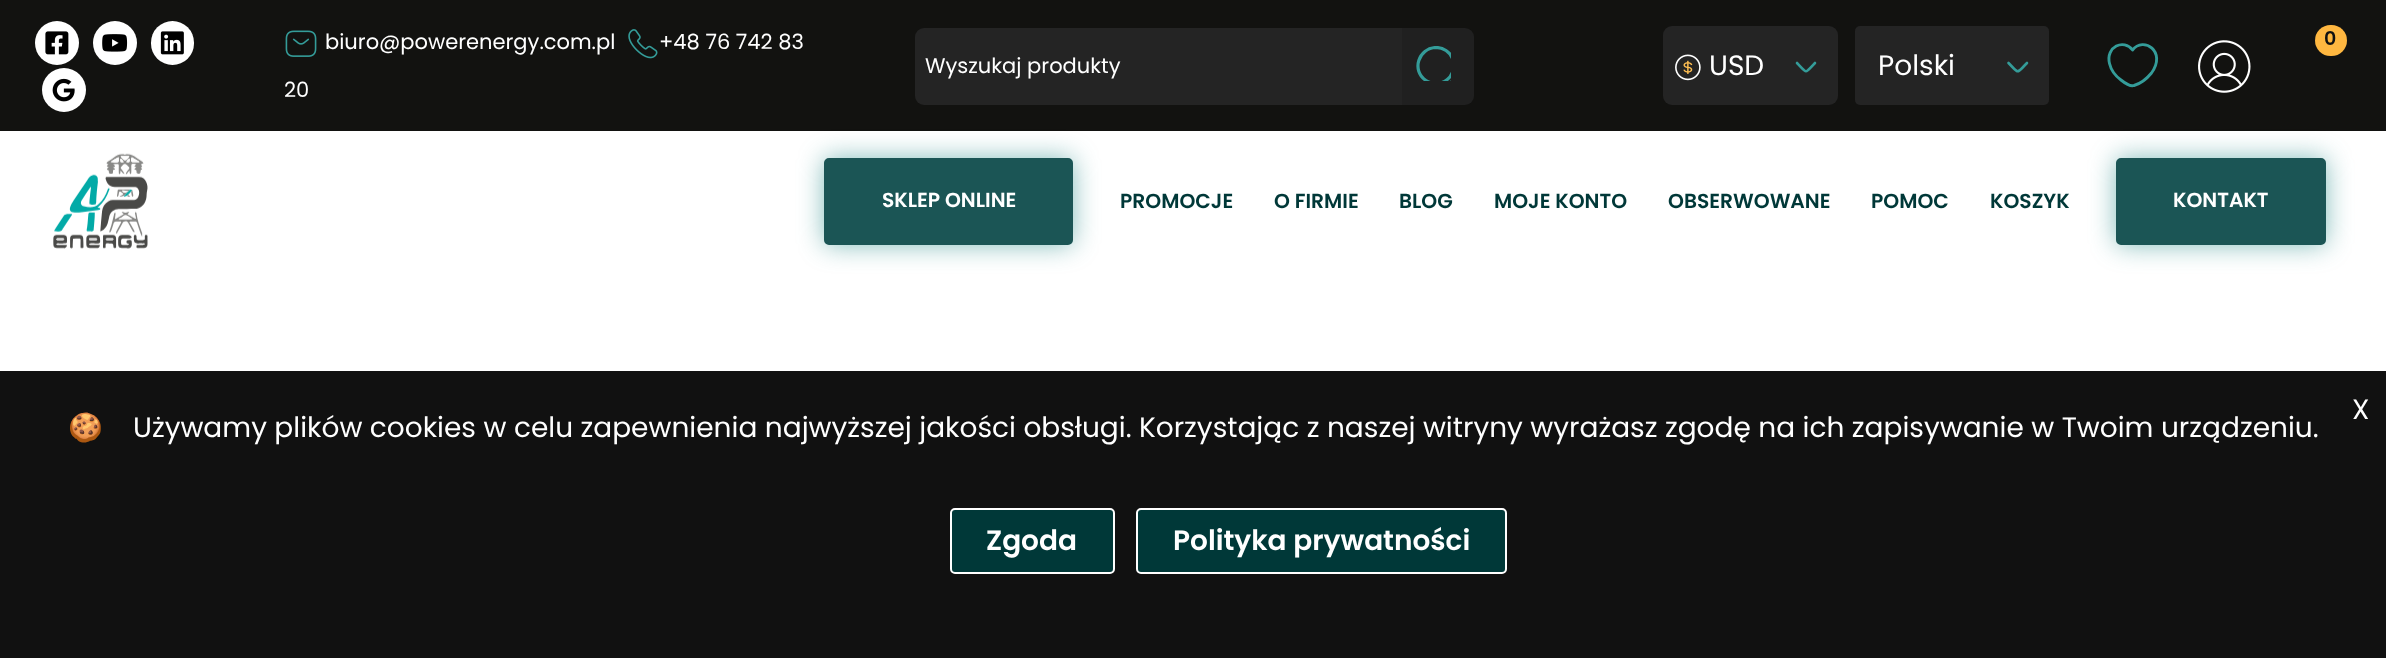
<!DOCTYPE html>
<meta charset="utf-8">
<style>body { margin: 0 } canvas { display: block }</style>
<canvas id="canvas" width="2386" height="658"></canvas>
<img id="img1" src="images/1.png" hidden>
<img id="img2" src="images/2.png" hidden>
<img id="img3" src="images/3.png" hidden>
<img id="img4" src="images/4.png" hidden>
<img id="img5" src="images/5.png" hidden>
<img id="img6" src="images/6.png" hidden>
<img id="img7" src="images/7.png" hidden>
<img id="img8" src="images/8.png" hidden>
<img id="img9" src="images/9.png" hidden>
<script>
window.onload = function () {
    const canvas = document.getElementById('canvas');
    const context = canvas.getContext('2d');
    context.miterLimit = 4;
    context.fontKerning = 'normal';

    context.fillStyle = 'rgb(255, 255, 255)';
    context.fillRect(0, 0, 2386, 658);
    context.fillStyle = 'rgb(18, 18, 16)';
    context.fillRect(0, 0, 2386, 131);
    context.fillStyle = 'rgb(255, 255, 255)';
    context.beginPath();
    context.arc(57, 43, 22, 0, 2 * Math.PI);
    context.fill();
    context.drawImage(document.getElementById('img1'), 45, 31, 24, 24);
    context.beginPath();
    context.arc(115, 43, 22, 0, 2 * Math.PI);
    context.fill();
    context.drawImage(document.getElementById('img2'), 102, 34, 26, 18);
    context.beginPath();
    context.roundRect(151, 21, 43, 44, 21.5);
    context.fill();
    context.drawImage(document.getElementById('img3'), 160, 31, 24, 24);
    context.beginPath();
    context.arc(64, 90, 22, 0, 2 * Math.PI);
    context.fill();
    context.drawImage(document.getElementById('img4'), 52, 78, 23, 24);
    context.drawImage(document.getElementById('img5'), 285, 30, 32, 27);
    context.drawImage(document.getElementById('img6'), 628, 29, 30, 30);
    context.fillStyle = 'rgb(32, 32, 32)';
    context.beginPath();
    context.roundRect(1400, 28, 74, 77, [0, 9, 9, 0]);
    context.fill();
    context.fillStyle = 'rgb(36, 36, 36)';
    context.beginPath();
    context.roundRect(915, 28, 487, 77, [9, 0, 0, 9]);
    context.fill();
    context.save();
    context.beginPath();
    context.rect(1416, 46, 35, 35);
    context.clip();
    context.beginPath();
    context.moveTo(1455.5, 85.5);
    context.lineTo(1452, 81.5);
    context.moveTo(1436, 83.5);
    context.bezierCurveTo(1453.5, 83.5, 1460.5, 60.5, 1446, 50.5);
    context.bezierCurveTo(1443, 48.5, 1439.5, 47.5, 1436, 47.5);
    context.bezierCurveTo(1418.5, 48, 1411, 70.5, 1426, 80.5);
    context.bezierCurveTo(1429, 82.5, 1432.5, 83.5, 1436, 83.5);
    context.closePath();
    context.strokeStyle = 'rgb(52, 156, 153)';
    context.lineWidth = 3.2;
    context.lineCap = 'round';
    context.lineJoin = 'round';
    context.stroke();
    context.restore();
    context.fillStyle = 'rgb(255, 183, 64)';
    context.beginPath();
    context.roundRect(2315, 25, 32, 31, 15.5);
    context.fill();
    context.fillStyle = 'rgb(36, 36, 36)';
    context.beginPath();
    context.roundRect(1663, 26, 175, 79, 9);
    context.fill();
    context.beginPath();
    context.moveTo(1815, 63);
    context.bezierCurveTo(1804.5, 74, 1807.5, 74, 1797, 63);
    context.strokeStyle = 'rgb(52, 156, 153)';
    context.lineWidth = 2.6;
    context.lineCap = 'round';
    context.lineJoin = 'round';
    context.stroke();
    context.drawImage(document.getElementById('img7'), 1675, 54, 26, 27);
    context.beginPath();
    context.roundRect(1855, 26, 194, 79, 5);
    context.fill();
    context.beginPath();
    context.moveTo(2027, 63);
    context.bezierCurveTo(2016, 74, 2019.5, 74, 2008.5, 63);
    context.stroke();
    context.beginPath();
    context.moveTo(2134, 85.5);
    context.bezierCurveTo(2130, 87, 2123.5, 82, 2121, 80);
    context.bezierCurveTo(2115.5, 76, 2111, 70, 2109.5, 63.5);
    context.bezierCurveTo(2105.5, 46.5, 2124, 38.5, 2132.5, 50);
    context.bezierCurveTo(2143.5, 36, 2167, 51.5, 2151.5, 73);
    context.bezierCurveTo(2147, 78.5, 2141, 83.5, 2134, 85.5);
    context.closePath();
    context.lineWidth = 2.9;
    context.stroke();
    context.drawImage(document.getElementById('img8'), 2198, 40, 53, 53);
    context.drawImage(document.getElementById('img9'), 53, 153, 95, 96);
    context.fillStyle = 'rgba(6, 122, 119, 0.5)';
    context.filter = 'blur(13px)';
    context.beginPath();
    context.roundRect(824, 158, 249, 87, 5);
    context.fill();
    context.filter = 'none';
    context.fillStyle = 'rgb(27, 85, 85)';
    context.beginPath();
    context.roundRect(825, 159, 247, 85, 4);
    context.fill();
    context.strokeStyle = 'rgb(27, 85, 85)';
    context.lineWidth = 2;
    context.lineJoin = 'miter';
    context.stroke();
    context.fillStyle = 'rgba(6, 122, 119, 0.5)';
    context.filter = 'blur(13px)';
    context.beginPath();
    context.roundRect(2116, 158, 210, 87, 5);
    context.fill();
    context.filter = 'none';
    context.fillStyle = 'rgb(27, 85, 85)';
    context.beginPath();
    context.roundRect(2117, 159, 208, 85, 4);
    context.fill();
    context.stroke();
    context.fillStyle = 'rgb(17, 17, 17)';
    context.fillRect(0, 371, 2386, 287);
    context.fillStyle = 'rgb(0, 56, 56)';
    context.beginPath();
    context.roundRect(951, 509, 163, 64, 4);
    context.fill();
    context.strokeStyle = 'rgb(255, 255, 255)';
    context.stroke();
    context.beginPath();
    context.roundRect(1137, 509, 369, 64, 4);
    context.fill();
    context.stroke();
    context.font = '21px Poppins';
    context.fillStyle = 'rgb(255, 255, 255)';
    context.fillText('biuro@powerenergy.com.pl', 325, 49);
    context.fillText('+48 76 742 83', 659, 49);
    context.fillText('20', 284, 97);
    context.fillText('Wyszukaj produkty', 925, 73);
    context.letterSpacing = '-1px';
    context.font = '600 19px Poppins';
    context.fillStyle = 'rgb(17, 17, 17)';
    context.fillText('0', 2324, 45);
    context.letterSpacing = '0px';
    context.font = '28px Poppins';
    context.fillStyle = 'rgb(255, 255, 255)';
    context.fillText('USD', 1709, 75);
    context.fillText('Polski', 1878, 75);
    context.font = '600 20.25px Poppins';
    context.fillText('SKLEP ONLINE', 882, 207);
    context.fillStyle = 'rgb(0, 56, 56)';
    context.fillText('PROMOCJE', 1120, 208);
    context.fillText('O FIRMIE', 1274, 208);
    context.fillText('BLOG', 1399, 208);
    context.fillText('MOJE KONTO', 1494, 208);
    context.fillText('OBSERWOWANE', 1668, 208);
    context.fillText('POMOC', 1871, 208);
    context.fillText('KOSZYK', 1990, 208);
    context.fillStyle = 'rgb(255, 255, 255)';
    context.fillText('KONTAKT', 2173, 207);
    context.font = '28px Poppins';
    context.fillText('X', 2352, 419);
    context.font = '28px Noto Color Emoji';
    context.fillText('🍪', 68, 437);
    context.font = '28px Poppins';
    context.fillText('Używamy plików cookies w celu zapewnienia najwyższej jakości obsługi. Korzystając z naszej witryny wyrażasz zgodę na ich zapisywanie w Twoim urządzeniu.', 133, 437);
    context.font = '600 28px Poppins';
    context.fillText('Zgoda', 986, 550);
    context.fillText('Polityka prywatności', 1173, 550);
};
</script>
